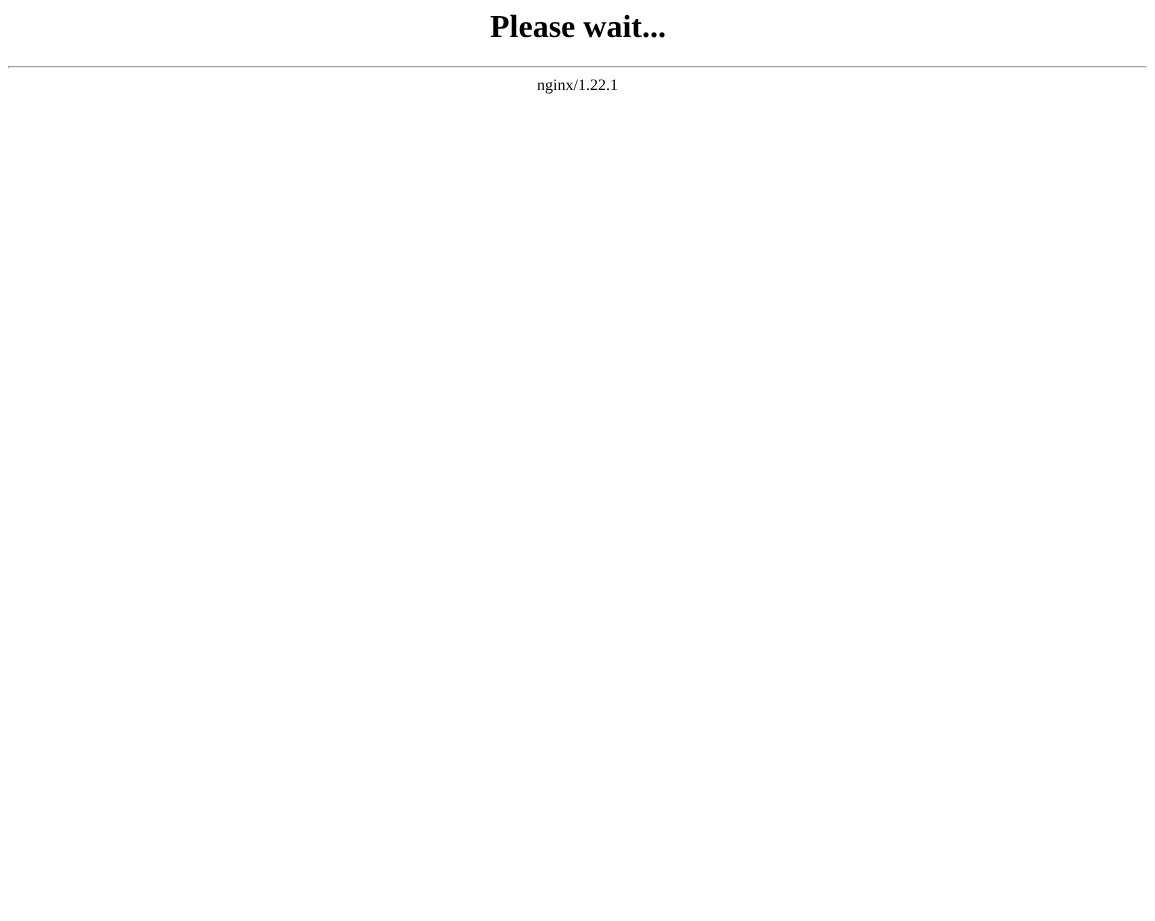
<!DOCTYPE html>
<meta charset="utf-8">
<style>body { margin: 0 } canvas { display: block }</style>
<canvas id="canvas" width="1155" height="921"></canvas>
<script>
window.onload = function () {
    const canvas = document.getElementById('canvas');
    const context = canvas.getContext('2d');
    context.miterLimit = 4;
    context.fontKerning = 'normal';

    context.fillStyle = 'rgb(255, 255, 255)';
    context.fillRect(0, 0, 1155, 921);
    context.fillStyle = 'rgb(159, 159, 159)';
    context.fillRect(8, 66, 1139, 1);
    context.fillStyle = 'rgb(238, 238, 238)';
    context.fillRect(1146, 66, 1, 2);
    context.fillRect(8, 67, 1139, 1);
    context.fillStyle = 'rgb(159, 159, 159)';
    context.fillRect(8, 66, 1, 2);
    context.font = 'bold 32px Liberation Serif';
    context.fillStyle = 'rgb(0, 0, 0)';
    context.fillText('Please wait...', 490, 37);
    context.font = '16px Liberation Serif';
    context.fillText('nginx/1.22.1', 537, 90);
};
</script>
